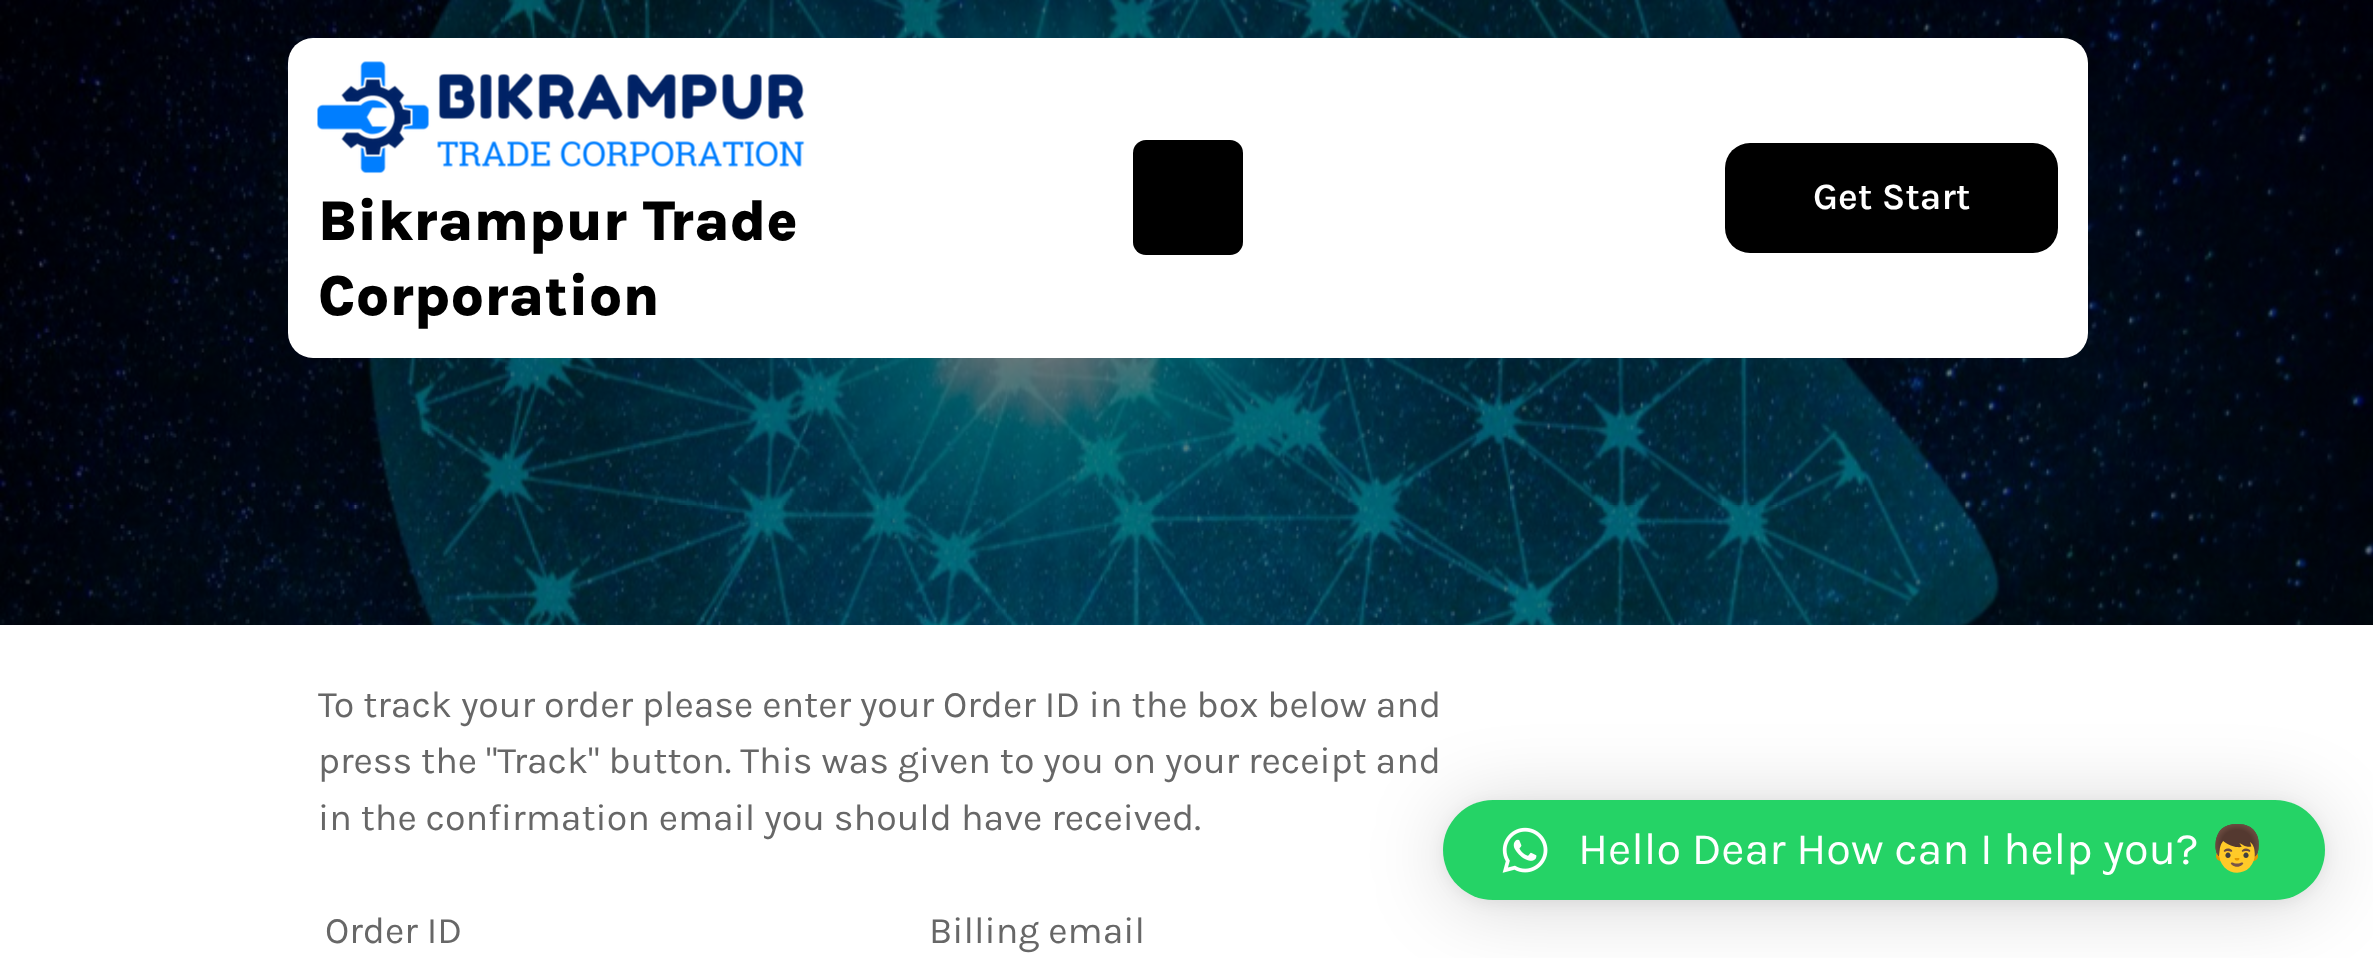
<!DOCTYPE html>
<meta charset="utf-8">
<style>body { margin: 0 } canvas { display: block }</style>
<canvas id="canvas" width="2373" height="958"></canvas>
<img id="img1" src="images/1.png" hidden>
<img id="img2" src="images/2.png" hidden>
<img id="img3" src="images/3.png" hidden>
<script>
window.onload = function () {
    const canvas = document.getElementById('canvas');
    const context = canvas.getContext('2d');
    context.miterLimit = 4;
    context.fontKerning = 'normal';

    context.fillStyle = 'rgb(255, 255, 255)';
    context.fillRect(0, 0, 2373, 958);
    context.fillStyle = 'rgb(0, 0, 0)';
    context.fillRect(0, 0, 2373, 625);
    context.drawImage(document.getElementById('img1'), 0, 0, 2373, 625);
    context.fillStyle = 'rgb(255, 255, 255)';
    context.beginPath();
    context.roundRect(288, 38, 1800, 320, 25);
    context.fill();
    context.drawImage(document.getElementById('img2'), 317, 61, 488, 113);
    context.fillStyle = 'rgb(0, 0, 0)';
    context.beginPath();
    context.roundRect(1133, 140, 110, 115, 13);
    context.fill();
    context.beginPath();
    context.roundRect(1725, 143, 333, 110, 25);
    context.fill();
    context.fillStyle = 'rgba(0, 0, 0, 0.16)';
    context.filter = 'blur(40px)';
    context.beginPath();
    context.roundRect(1443, 805, 882, 100, 50);
    context.fill();
    context.filter = 'none';
    context.fillStyle = 'rgba(0, 0, 0, 0.06)';
    context.filter = 'blur(7.5px)';
    context.beginPath();
    context.roundRect(1443, 803, 882, 100, 50);
    context.fill();
    context.filter = 'none';
    context.fillStyle = 'rgb(37, 211, 102)';
    context.beginPath();
    context.roundRect(1443, 800, 882, 100, 50);
    context.fill();
    context.drawImage(document.getElementById('img3'), 1502, 827, 46, 46);
    context.font = '800 57.5px Karla';
    context.fillStyle = 'rgb(0, 0, 0)';
    context.fillText('Bikrampur Trade', 318, 240);
    context.fillText('Corporation', 318, 315);
    context.font = '600 37.5px Karla';
    context.fillStyle = 'rgb(255, 255, 255)';
    context.fillText('Get Start', 1813, 209);
    context.font = '37.5px Karla';
    context.fillStyle = 'rgb(103, 103, 103)';
    context.fillText('To track your order please enter your Order ID in the box below and', 318, 717);
    context.fillText('press the "Track" button. This was given to you on your receipt and', 318, 773);
    context.fillText('in the confirmation email you should have received.', 318, 830);
    context.fillText('Order ID', 325, 943);
    context.fillText('Billing email', 929, 943);
    context.font = '45px Karla';
    context.fillStyle = 'rgb(255, 255, 255)';
    context.fillText('Hello Dear How can I help you?', 1578, 864);
    context.font = '45px Noto Color Emoji';
    context.fillText('👦', 2209, 864);
};
</script>
